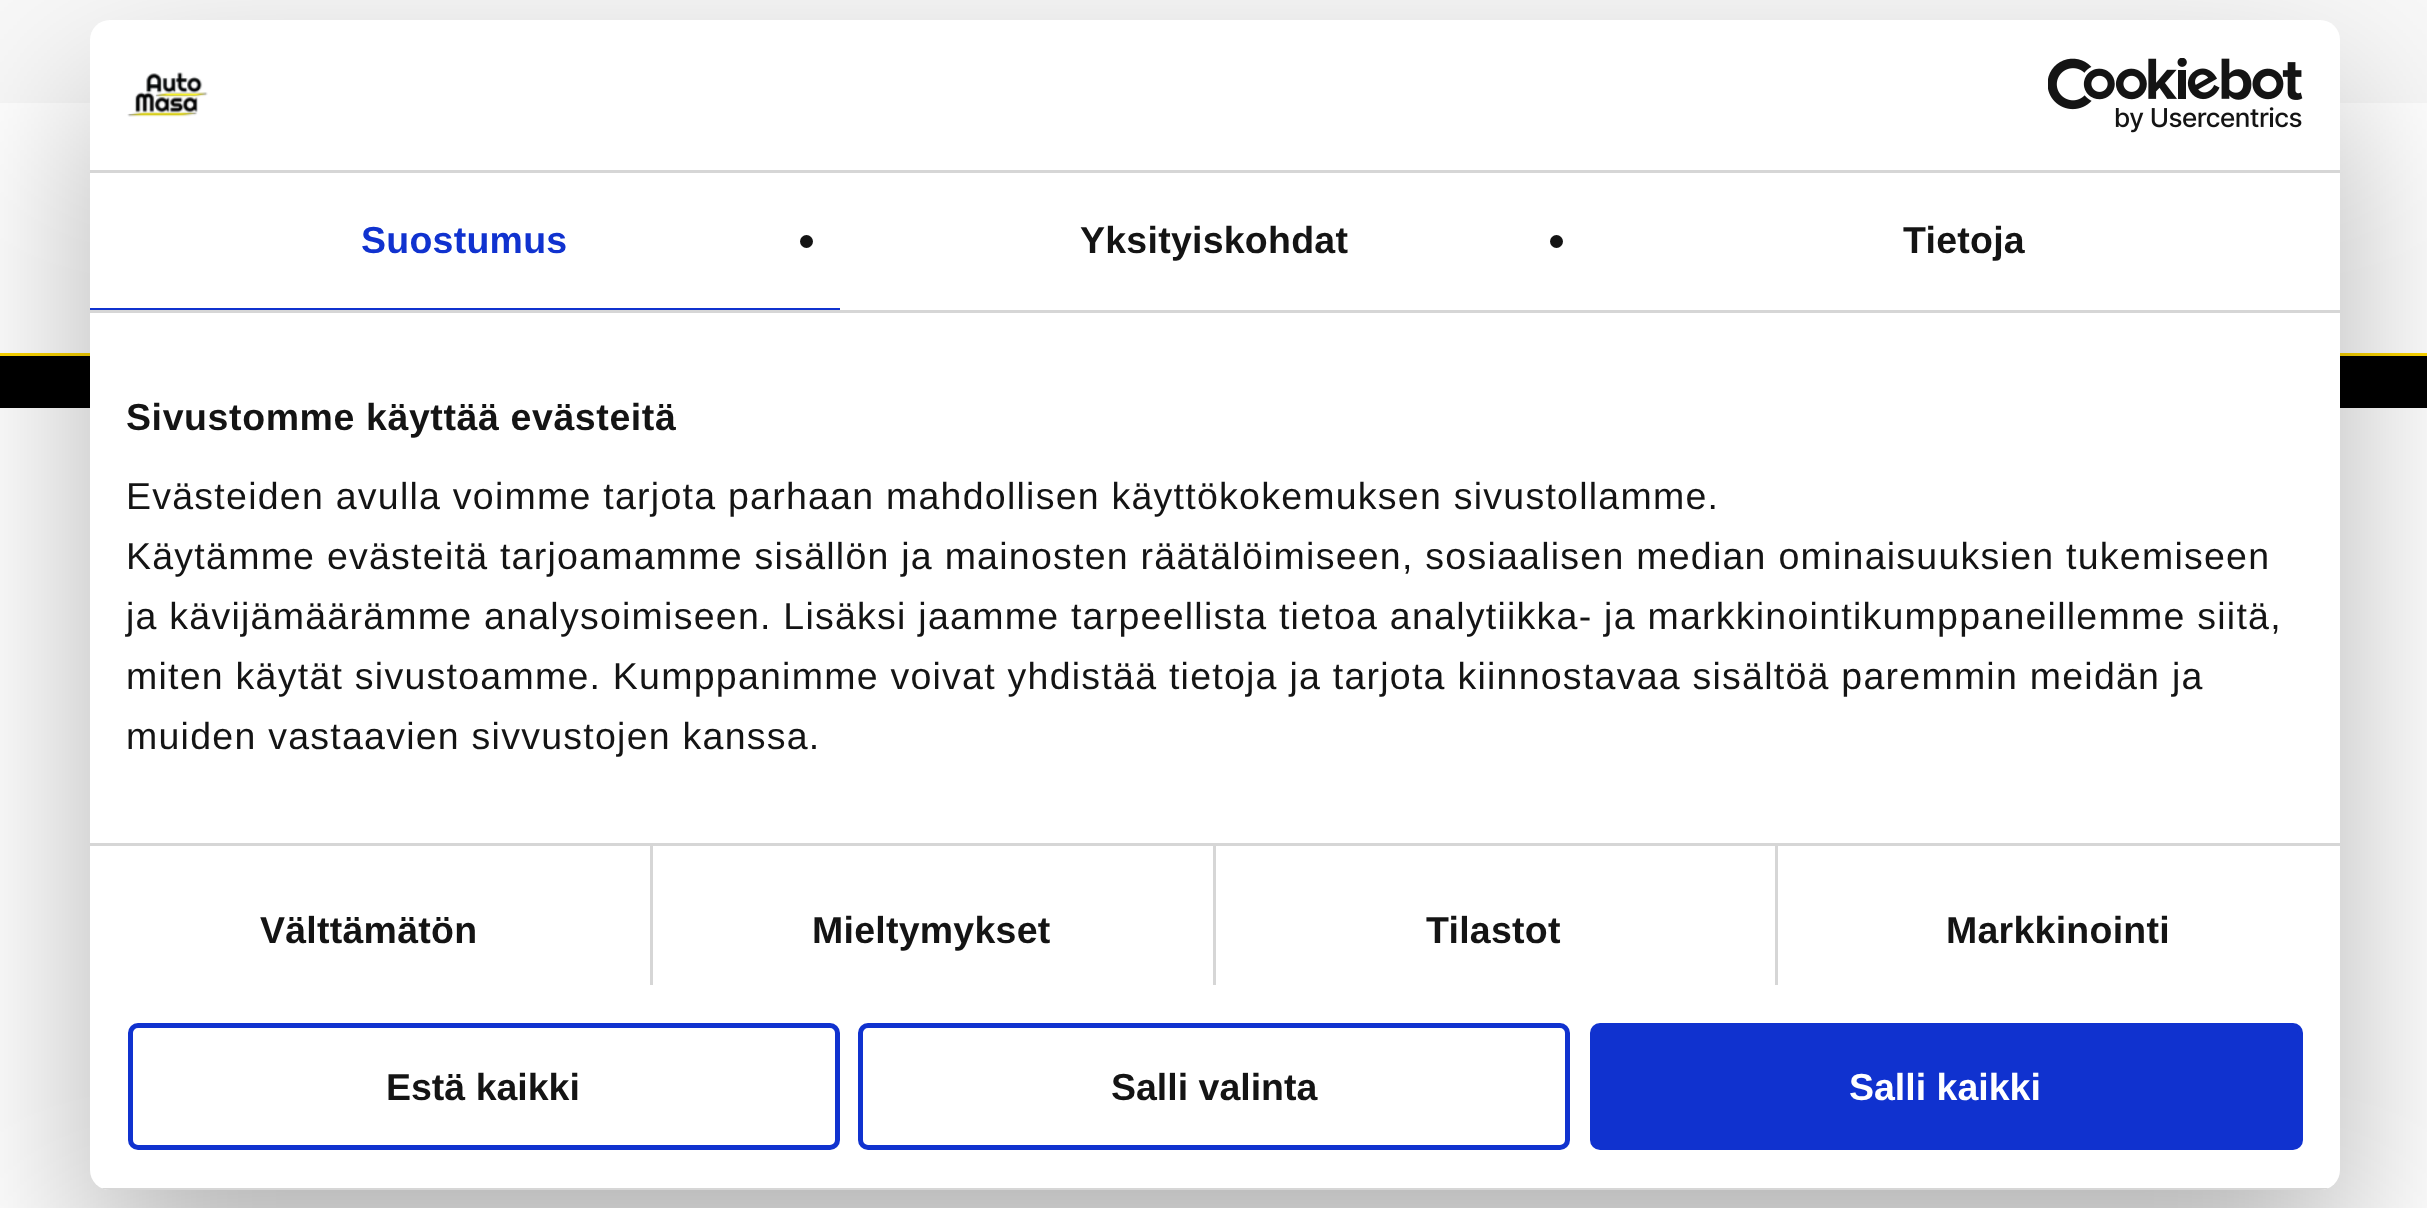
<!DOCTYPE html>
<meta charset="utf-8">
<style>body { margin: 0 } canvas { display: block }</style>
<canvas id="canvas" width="2427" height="1208"></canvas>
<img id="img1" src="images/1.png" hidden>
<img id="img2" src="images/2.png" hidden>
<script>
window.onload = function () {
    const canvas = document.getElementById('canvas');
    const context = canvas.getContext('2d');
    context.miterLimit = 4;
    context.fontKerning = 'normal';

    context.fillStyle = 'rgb(255, 255, 255)';
    context.fillRect(0, 0, 2427, 1208);
    context.fillStyle = 'rgb(254, 215, 0)';
    context.fillRect(0, 353, 2427, 3);
    context.fillStyle = 'rgb(248, 248, 248)';
    context.fillRect(0, 0, 2427, 103);
    context.fillStyle = 'rgb(0, 0, 0)';
    context.fillRect(0, 356, 2427, 52);
    context.fillStyle = 'rgba(0, 0, 0, 0.3)';
    context.filter = 'blur(85px)';
    context.beginPath();
    context.roundRect(90, 100, 2250, 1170, 20);
    context.fill();
    context.filter = 'none';
    context.fillStyle = 'rgb(255, 255, 255)';
    context.beginPath();
    context.roundRect(90, 20, 2250, 1170, 20);
    context.fill();
    context.fillStyle = 'rgb(214, 214, 214)';
    context.fillRect(90, 170, 2250, 3);
    context.drawImage(document.getElementById('img1'), 127, 72, 81, 45);
    context.drawImage(document.getElementById('img2'), 2048, 58, 255, 75);
    context.fillRect(90, 310, 2250, 3);
    context.fillStyle = 'rgb(16, 50, 207)';
    context.fillRect(90, 308, 750, 2);
    context.fillStyle = 'rgb(20, 20, 20)';
    context.beginPath();
    context.arc(806.5, 241.5, 6.5, 0, 2 * Math.PI);
    context.fill();
    context.beginPath();
    context.arc(1556.5, 241.5, 6.5, 0, 2 * Math.PI);
    context.fill();
    context.fillStyle = 'rgb(214, 214, 214)';
    context.fillRect(650, 845, 3, 140);
    context.fillRect(1213, 845, 3, 140);
    context.fillRect(1775, 845, 3, 140);
    context.fillRect(90, 843, 2250, 3);
    context.save();
    context.beginPath();
    context.roundRect(90, 20, 2250, 1170, 20);
    context.clip();
    context.fillRect(101, 1188, 2228, 2);
    context.restore();
    context.beginPath();
    context.roundRect(130.5, 1025.5, 707, 122, 7.5);
    context.strokeStyle = 'rgb(16, 50, 207)';
    context.lineWidth = 5;
    context.stroke();
    context.beginPath();
    context.roundRect(860.5, 1025.5, 707, 122, 7.5);
    context.stroke();
    context.fillStyle = 'rgb(16, 50, 207)';
    context.beginPath();
    context.roundRect(1592.5, 1025.5, 708, 122, 7.5);
    context.fill();
    context.stroke();
    context.letterSpacing = '0.25px';
    context.font = 'bold 37.5px Liberation Sans';
    context.fillText('Suostumus', 361, 253);
    context.fillStyle = 'rgb(20, 20, 20)';
    context.fillText('Yksityiskohdat', 1080, 253);
    context.fillText('Tietoja', 1903, 253);
    context.letterSpacing = '0.6px';
    context.fillText('Sivustomme käyttää evästeitä', 126, 430);
    context.letterSpacing = '1.25px';
    context.font = '37.5px Liberation Sans';
    context.fillText('Evästeiden avulla voimme tarjota parhaan mahdollisen käyttökokemuksen sivustollamme.', 126, 509);
    context.fillText('Käytämme evästeitä tarjoamamme sisällön ja mainosten räätälöimiseen, sosiaalisen median ominaisuuksien tukemiseen', 126, 569);
    context.fillText('ja kävijämäärämme analysoimiseen. Lisäksi jaamme tarpeellista tietoa analytiikka- ja markkinointikumppaneillemme siitä,', 126, 629);
    context.fillText('miten käytät sivustoamme. Kumppanimme voivat yhdistää tietoja ja tarjota kiinnostavaa sisältöä paremmin meidän ja', 126, 689);
    context.fillText('muiden vastaavien sivvustojen kanssa.', 126, 749);
    context.letterSpacing = '0.25px';
    context.font = 'bold 37.5px Liberation Sans';
    context.fillText('Välttämätön', 260, 943);
    context.fillText('Mieltymykset', 812, 943);
    context.fillText('Tilastot', 1426, 943);
    context.fillText('Markkinointi', 1946, 943);
    context.letterSpacing = '0px';
    context.fillText('Estä kaikki', 386, 1100);
    context.fillText('Salli valinta', 1111, 1100);
    context.fillStyle = 'rgb(255, 255, 255)';
    context.fillText('Salli kaikki', 1849, 1100);
};
</script>
